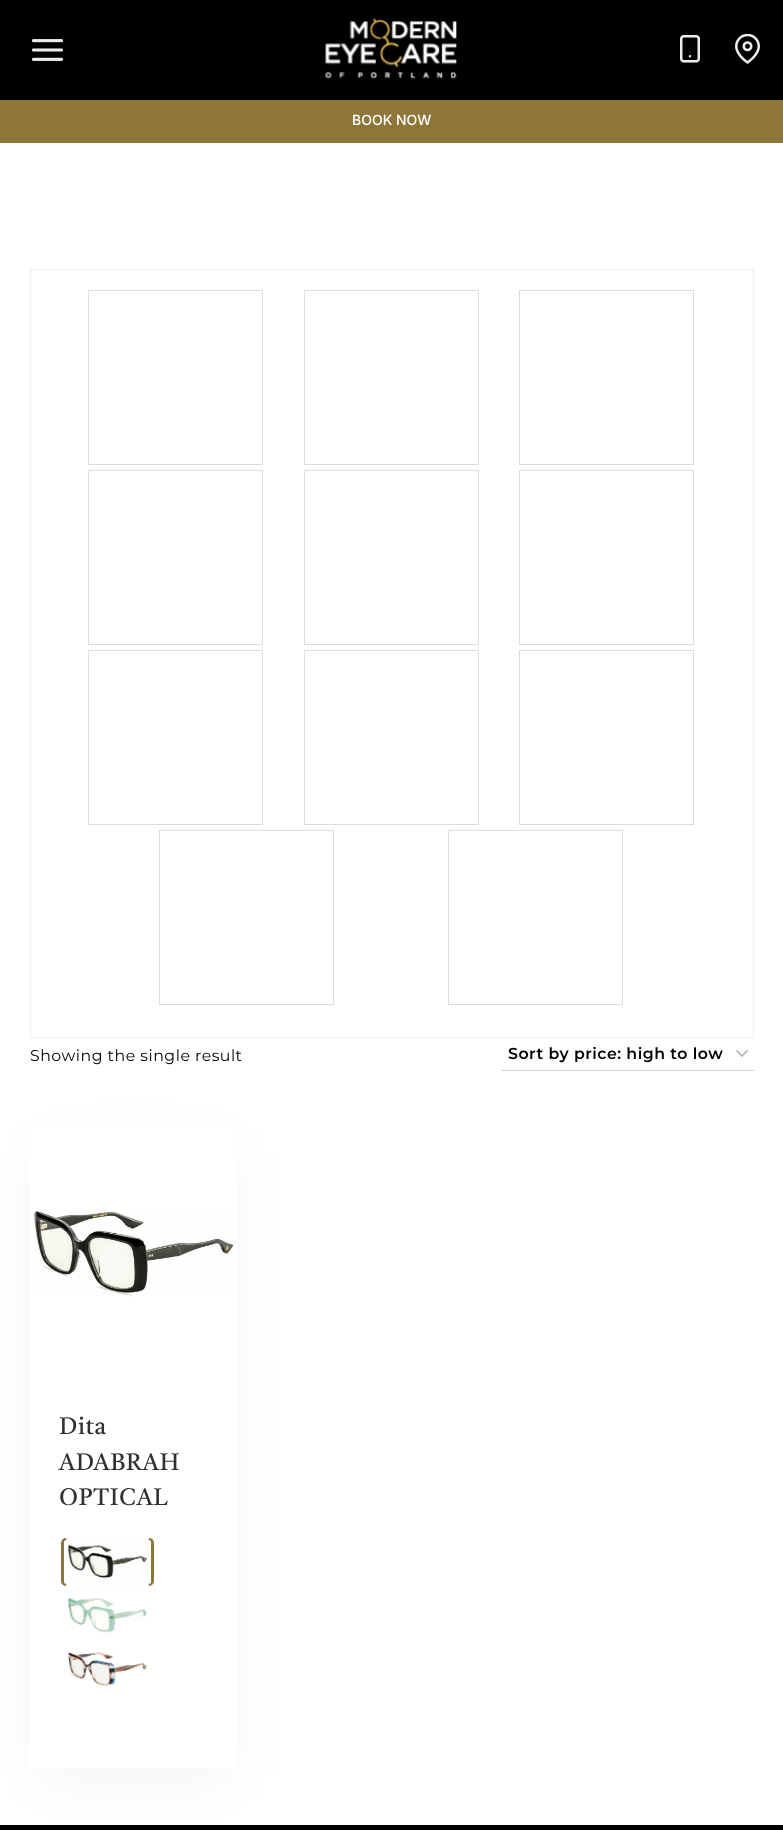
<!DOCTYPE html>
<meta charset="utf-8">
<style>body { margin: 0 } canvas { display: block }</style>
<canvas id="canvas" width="783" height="1830"></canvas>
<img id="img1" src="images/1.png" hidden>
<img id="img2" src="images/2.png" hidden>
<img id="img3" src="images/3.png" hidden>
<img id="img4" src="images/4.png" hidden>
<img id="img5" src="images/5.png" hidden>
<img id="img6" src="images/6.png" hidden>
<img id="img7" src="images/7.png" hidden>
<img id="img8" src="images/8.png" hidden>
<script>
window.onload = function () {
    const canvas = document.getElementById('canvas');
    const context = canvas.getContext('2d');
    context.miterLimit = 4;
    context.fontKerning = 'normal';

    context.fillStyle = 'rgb(255, 255, 255)';
    context.fillRect(0, 0, 783, 1830);
    context.fillStyle = 'rgb(0, 0, 0)';
    context.fillRect(0, 0, 783, 100);
    context.drawImage(document.getElementById('img1'), 31, 39, 33, 22);
    context.drawImage(document.getElementById('img2'), 325, 18, 132, 61);
    context.drawImage(document.getElementById('img3'), 680, 35, 20, 28);
    context.drawImage(document.getElementById('img4'), 735, 34, 25, 30);
    context.fillStyle = 'rgb(142, 117, 56)';
    context.fillRect(0, 100, 783, 43);
    context.strokeStyle = 'rgb(238, 238, 238)';
    context.strokeRect(30.5, 269.5, 723, 768);
    context.strokeStyle = 'rgb(221, 221, 221)';
    context.strokeRect(88.5, 290.5, 174, 174);
    context.strokeRect(304.5, 290.5, 174, 174);
    context.strokeRect(519.5, 290.5, 174, 174);
    context.strokeRect(88.5, 470.5, 174, 174);
    context.strokeRect(304.5, 470.5, 174, 174);
    context.strokeRect(519.5, 470.5, 174, 174);
    context.strokeRect(88.5, 650.5, 174, 174);
    context.strokeRect(304.5, 650.5, 174, 174);
    context.strokeRect(519.5, 650.5, 174, 174);
    context.strokeRect(159.5, 830.5, 174, 174);
    context.strokeRect(448.5, 830.5, 174, 174);
    context.beginPath();
    context.moveTo(736.5, 1050.5);
    context.lineTo(742, 1056);
    context.lineTo(747.5, 1050.5);
    context.strokeStyle = 'rgb(187, 187, 187)';
    context.lineWidth = 1.8;
    context.stroke();
    context.fillStyle = 'rgb(203, 213, 224)';
    context.fillRect(501, 1070, 253, 1);
    context.fillStyle = 'rgb(0, 0, 0)';
    context.fillRect(0, 1825, 783, 5);
    context.fillStyle = 'rgba(0, 0, 0, 0.05)';
    context.filter = 'blur(31px)';
    context.beginPath();
    context.rect(43, 1154, 182, 620);
    context.fill();
    context.filter = 'none';
    context.fillStyle = 'rgb(255, 255, 255)';
    context.fillRect(30, 1128, 208, 640);
    context.drawImage(document.getElementById('img5'), 34, 1211, 200, 86);
    context.beginPath();
    context.roundRect(62.5, 1539.5, 90, 45, 3.5);
    context.strokeStyle = 'rgb(142, 117, 56)';
    context.lineWidth = 3;
    context.stroke();
    context.beginPath();
    context.roundRect(64, 1540, 87, 44, 2.5);
    context.fill();
    context.drawImage(document.getElementById('img6'), 66, 1538, 83, 48);
    context.drawImage(document.getElementById('img7'), 68, 1598, 79, 35);
    context.drawImage(document.getElementById('img8'), 68, 1652, 79, 35);
    context.font = '500 14px Inter';
    context.fillText('BOOK NOW', 352, 125);
    context.letterSpacing = '0.5px';
    context.font = '15.75px Montserrat';
    context.fillStyle = 'rgb(0, 0, 0)';
    context.fillText('Showing the single result', 30, 1061);
    context.font = '600 15.75px Montserrat';
    context.fillText('Sort by price: high to low', 508, 1059);
    context.font = '23.75px Castoro';
    context.fillStyle = 'rgb(49, 49, 48)';
    context.fillText('Dita', 59, 1434);
    context.fillText('ADABRAH', 59, 1470);
    context.fillText('OPTICAL', 59, 1505);
};
</script>
